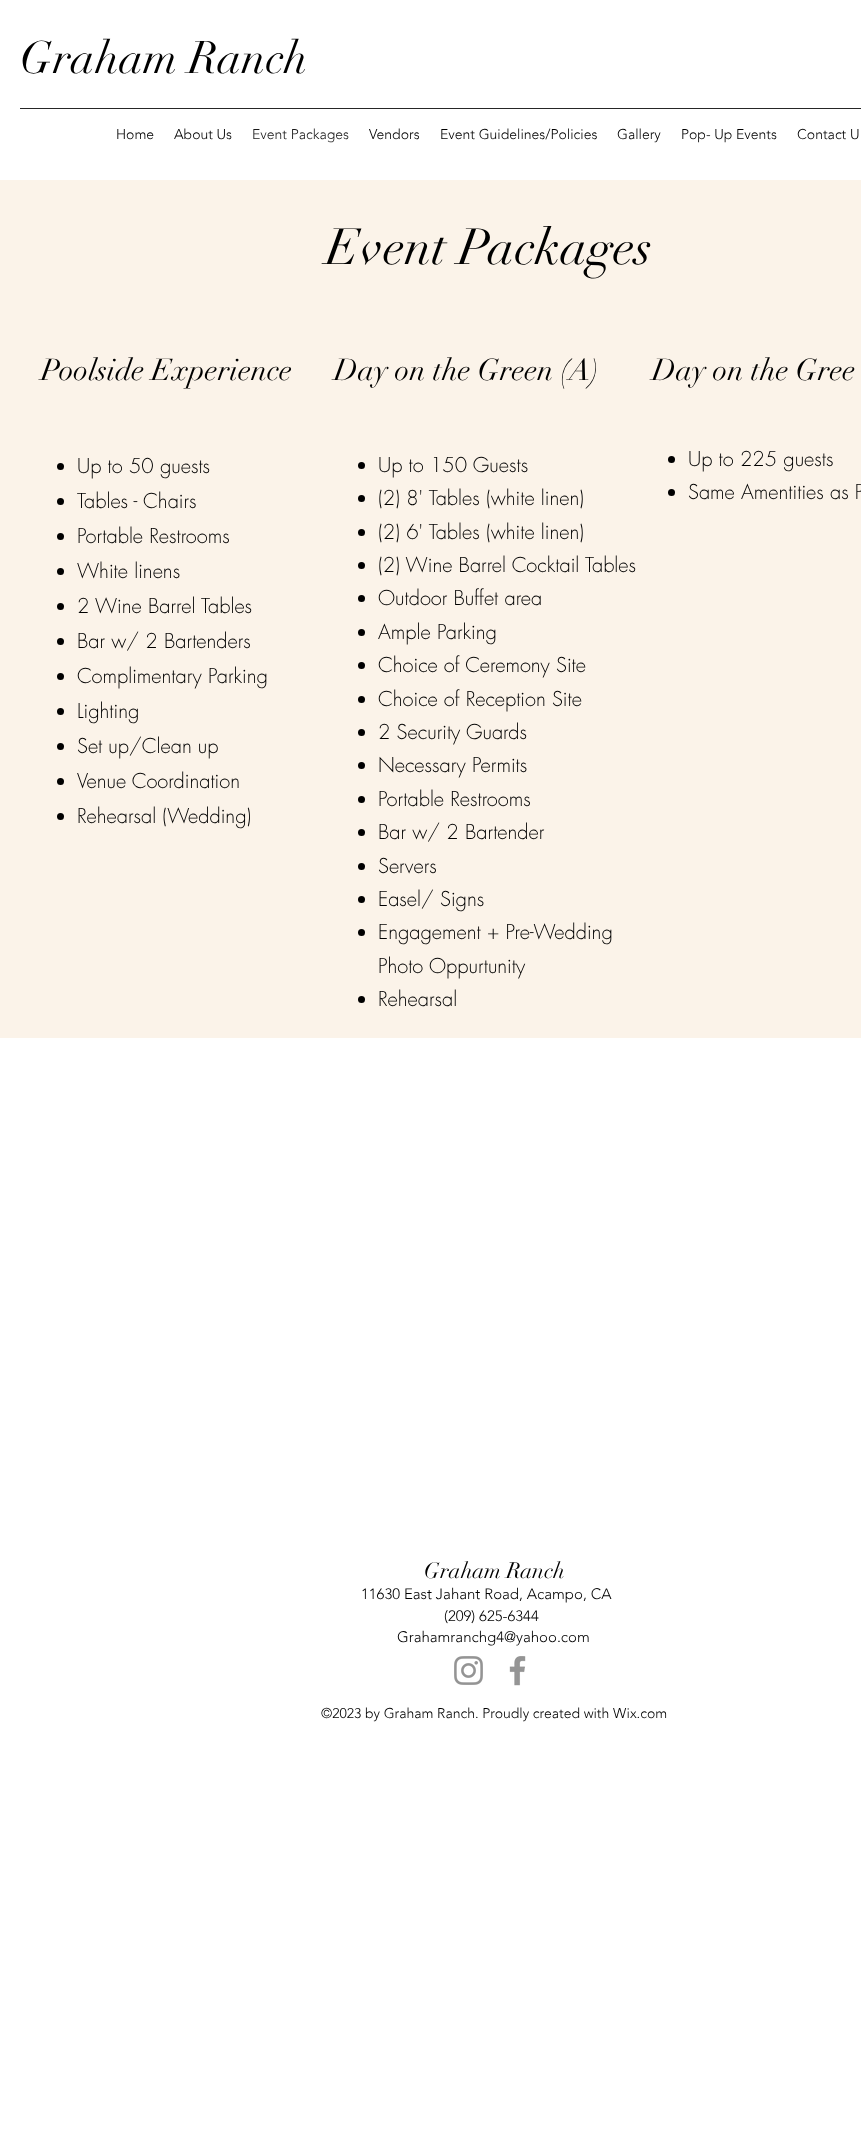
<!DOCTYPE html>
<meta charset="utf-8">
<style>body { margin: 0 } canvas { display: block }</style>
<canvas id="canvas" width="861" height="2138"></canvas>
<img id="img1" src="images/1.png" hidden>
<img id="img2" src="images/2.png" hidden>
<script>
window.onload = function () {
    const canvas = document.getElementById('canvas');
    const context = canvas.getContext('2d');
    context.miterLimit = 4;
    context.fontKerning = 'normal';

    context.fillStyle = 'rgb(255, 255, 255)';
    context.fillRect(0, 0, 861, 2138);
    context.fillStyle = 'rgb(38, 38, 38)';
    context.fillRect(20, 108, 841, 1);
    context.fillStyle = 'rgb(251, 243, 233)';
    context.fillRect(0, 180, 861, 858);
    context.fillStyle = 'rgb(0, 0, 0)';
    context.beginPath();
    context.arc(60.5, 466.5, 3.5, 0, 2 * Math.PI);
    context.fill();
    context.beginPath();
    context.arc(60.5, 501.5, 3.5, 0, 2 * Math.PI);
    context.fill();
    context.beginPath();
    context.arc(60.5, 536.5, 3.5, 0, 2 * Math.PI);
    context.fill();
    context.beginPath();
    context.arc(60.5, 571.5, 3.5, 0, 2 * Math.PI);
    context.fill();
    context.beginPath();
    context.arc(60.5, 606.5, 3.5, 0, 2 * Math.PI);
    context.fill();
    context.beginPath();
    context.arc(60.5, 641.5, 3.5, 0, 2 * Math.PI);
    context.fill();
    context.beginPath();
    context.arc(60.5, 676.5, 3.5, 0, 2 * Math.PI);
    context.fill();
    context.beginPath();
    context.arc(60.5, 711.5, 3.5, 0, 2 * Math.PI);
    context.fill();
    context.beginPath();
    context.arc(60.5, 746.5, 3.5, 0, 2 * Math.PI);
    context.fill();
    context.beginPath();
    context.arc(60.5, 781.5, 3.5, 0, 2 * Math.PI);
    context.fill();
    context.beginPath();
    context.arc(60.5, 816.5, 3.5, 0, 2 * Math.PI);
    context.fill();
    context.beginPath();
    context.arc(361.5, 465.5, 3.5, 0, 2 * Math.PI);
    context.fill();
    context.beginPath();
    context.arc(361.5, 498.5, 3.5, 0, 2 * Math.PI);
    context.fill();
    context.beginPath();
    context.arc(361.5, 532.5, 3.5, 0, 2 * Math.PI);
    context.fill();
    context.beginPath();
    context.arc(361.5, 565.5, 3.5, 0, 2 * Math.PI);
    context.fill();
    context.beginPath();
    context.arc(361.5, 598.5, 3.5, 0, 2 * Math.PI);
    context.fill();
    context.beginPath();
    context.arc(361.5, 632.5, 3.5, 0, 2 * Math.PI);
    context.fill();
    context.beginPath();
    context.arc(361.5, 665.5, 3.5, 0, 2 * Math.PI);
    context.fill();
    context.beginPath();
    context.arc(361.5, 699.5, 3.5, 0, 2 * Math.PI);
    context.fill();
    context.beginPath();
    context.arc(361.5, 732.5, 3.5, 0, 2 * Math.PI);
    context.fill();
    context.beginPath();
    context.arc(361.5, 765.5, 3.5, 0, 2 * Math.PI);
    context.fill();
    context.beginPath();
    context.arc(361.5, 799.5, 3.5, 0, 2 * Math.PI);
    context.fill();
    context.beginPath();
    context.arc(361.5, 832.5, 3.5, 0, 2 * Math.PI);
    context.fill();
    context.beginPath();
    context.arc(361.5, 866.5, 3.5, 0, 2 * Math.PI);
    context.fill();
    context.beginPath();
    context.arc(361.5, 899.5, 3.5, 0, 2 * Math.PI);
    context.fill();
    context.beginPath();
    context.arc(361.5, 932.5, 3.5, 0, 2 * Math.PI);
    context.fill();
    context.beginPath();
    context.arc(361.5, 999.5, 3.5, 0, 2 * Math.PI);
    context.fill();
    context.beginPath();
    context.arc(671.5, 459.5, 3.5, 0, 2 * Math.PI);
    context.fill();
    context.beginPath();
    context.arc(671.5, 492.5, 3.5, 0, 2 * Math.PI);
    context.fill();
    context.drawImage(document.getElementById('img1'), 454, 1656, 29, 29);
    context.drawImage(document.getElementById('img2'), 509, 1656, 17, 30);
    context.font = '45px didot';
    context.fillText('Graham Ranch', 20, 73);
    context.font = '300 14px "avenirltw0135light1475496"';
    context.fillText('Home', 116, 139);
    context.fillText('About Us', 174, 139);
    context.fillStyle = 'rgb(25, 25, 25)';
    context.fillText('Event Packages', 252, 139);
    context.fillStyle = 'rgb(0, 0, 0)';
    context.fillText('Vendors', 369, 139);
    context.fillText('Event Guidelines/Policies', 440, 139);
    context.fillText('Gallery', 617, 139);
    context.fillText('Pop- Up Events', 681, 139);
    context.fillText('Contact U', 797, 139);
    context.font = '50px didot';
    context.fillText('Event Packages', 326, 264);
    context.font = '30px didot';
    context.fillText('Poolside Experience', 41, 380);
    context.fillText('Day on the Green (A)', 334, 380);
    context.fillText('Day on the Gree', 652, 380);
    context.font = '300 20px futura';
    context.fillText('Up to 50 guests', 77, 473);
    context.fillText('Tables - Chairs', 77, 508);
    context.fillText('Portable Restrooms', 77, 543);
    context.fillText('White linens', 77, 578);
    context.fillText('2 Wine Barrel Tables', 77, 613);
    context.fillText('Bar w/ 2 Bartenders', 77, 648);
    context.fillText('Complimentary Parking', 77, 683);
    context.fillText('Lighting', 77, 718);
    context.fillText('Set up/Clean up', 77, 753);
    context.fillText('Venue Coordination', 77, 788);
    context.fillText('Rehearsal (Wedding)', 77, 823);
    context.fillText('Up to 150 Guests', 378, 472);
    context.fillText('(2) 8\' Tables (white linen)', 378, 505);
    context.fillText('(2) 6\' Tables (white linen)', 378, 539);
    context.fillText('(2) Wine Barrel Cocktail Tables', 378, 572);
    context.fillText('Outdoor Buffet area', 378, 605);
    context.fillText('Ample Parking', 378, 639);
    context.fillText('Choice of Ceremony Site', 378, 672);
    context.fillText('Choice of Reception Site', 378, 706);
    context.fillText('2 Security Guards', 378, 739);
    context.fillText('Necessary Permits', 378, 772);
    context.fillText('Portable Restrooms', 378, 806);
    context.fillText('Bar w/ 2 Bartender', 378, 839);
    context.fillText('Servers', 378, 873);
    context.fillText('Easel/ Signs', 378, 906);
    context.fillText('Engagement + Pre-Wedding', 378, 939);
    context.fillText('Photo Oppurtunity', 378, 973);
    context.fillText('Rehearsal', 378, 1006);
    context.fillText('Up to 225 guests', 688, 466);
    context.fillText('Same Amentities as P', 688, 499);
    context.font = '22px didot';
    context.fillText('Graham Ranch', 424, 1578);
    context.font = '300 15px "avenirltw0135light1475496"';
    context.fillText('11630 East Jahant Road, Acampo, CA', 361, 1599);
    context.fillText('(209) 625-6344', 444, 1621);
    context.fillText('Grahamranchg4@yahoo.com', 397, 1642);
    context.font = '300 14px "avenirltw0135light1475496"';
    context.fillText('©2023 by Graham Ranch. Proudly created with Wix.com', 321, 1718);
};
</script>
